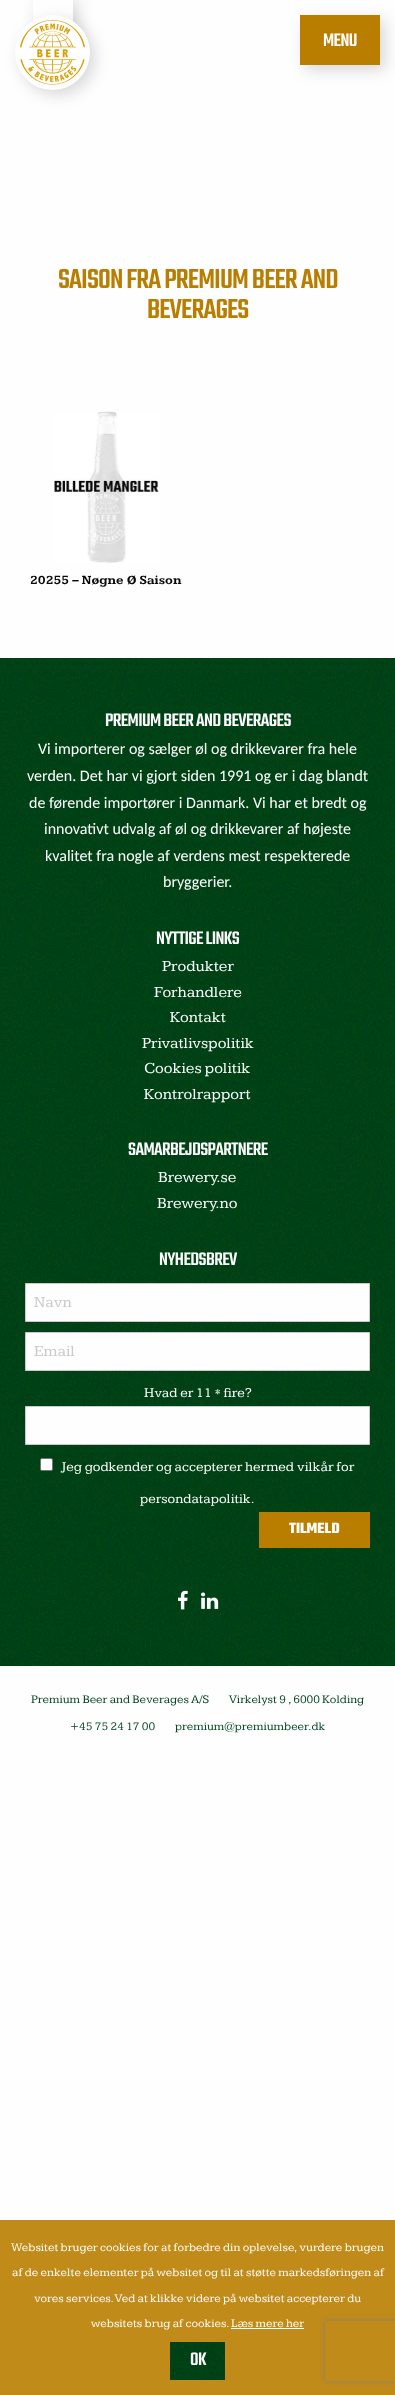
<!DOCTYPE html>
<meta charset="utf-8">
<style>body { margin: 0 } canvas { display: block }</style>
<canvas id="canvas" width="395" height="2395"></canvas>
<img id="img1" src="images/1.png" hidden>
<img id="img2" src="images/2.png" hidden>
<img id="img3" src="images/3.png" hidden>
<img id="img4" src="images/4.png" hidden>
<img id="img5" src="images/5.png" hidden>
<img id="img6" src="images/6.png" hidden>
<script>
window.onload = function () {
    const canvas = document.getElementById('canvas');
    const context = canvas.getContext('2d');
    context.miterLimit = 4;
    context.fontKerning = 'normal';

    context.fillStyle = 'rgb(254, 254, 254)';
    context.fillRect(0, 0, 395, 2395);
    context.fillStyle = 'rgba(0, 0, 0, 0.15)';
    context.filter = 'blur(7.5px)';
    context.beginPath();
    context.roundRect(20, 20, 75, 75, 37.5);
    context.fill();
    context.filter = 'none';
    context.save();
    context.beginPath();
    context.moveTo(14, 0);
    context.lineTo(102, 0);
    context.lineTo(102, 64);
    context.lineTo(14, 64);
    context.closePath();
    context.moveTo(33, -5);
    context.lineTo(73, -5);
    context.lineTo(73, 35);
    context.lineTo(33, 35);
    context.closePath();
    context.clip('evenodd');
    context.filter = 'blur(7.5px)';
    context.beginPath();
    context.rect(38, 0, 40, 40);
    context.fill();
    context.filter = 'none';
    context.restore();
    context.fillStyle = 'rgb(254, 254, 254)';
    context.beginPath();
    context.arc(52.5, 52.5, 37.5, 0, 2 * Math.PI);
    context.fill();
    context.drawImage(document.getElementById('img1'), 20, 20, 65, 65);
    context.fillStyle = 'rgba(0, 0, 0, 0.15)';
    context.filter = 'blur(7.5px)';
    context.beginPath();
    context.rect(305, 20, 80, 50);
    context.fill();
    context.filter = 'none';
    context.fillStyle = 'rgb(185, 126, 0)';
    context.fillRect(300, 15, 80, 50);
    context.drawImage(document.getElementById('img2'), 54, 411, 105, 152);
    context.drawImage(document.getElementById('img3'), 0, 658, 395, 1008);
    context.fillStyle = 'rgb(254, 254, 254)';
    context.beginPath();
    context.rect(25.5, 1283.5, 344, 38);
    context.fill();
    context.strokeStyle = 'rgb(202, 202, 202)';
    context.stroke();
    context.beginPath();
    context.rect(25.5, 1332.5, 344, 38);
    context.fill();
    context.stroke();
    context.beginPath();
    context.rect(25.5, 1406.5, 344, 38);
    context.fill();
    context.stroke();
    context.fillStyle = 'rgb(255, 255, 255)';
    context.beginPath();
    context.roundRect(40.5, 1458.5, 12, 12, 1.5);
    context.fill();
    context.strokeStyle = 'rgb(118, 118, 118)';
    context.stroke();
    context.fillStyle = 'rgb(185, 126, 0)';
    context.fillRect(259, 1512, 111, 36);
    context.drawImage(document.getElementById('img4'), 178, 1590, 10, 20);
    context.drawImage(document.getElementById('img5'), 201, 1592, 18, 17);
    context.fillStyle = 'rgb(192, 139, 25)';
    context.fillRect(0, 2220, 395, 175);
    context.fillStyle = 'rgb(254, 254, 254)';
    context.fillRect(231, 2328, 73, 1);
    context.drawImage(document.getElementById('img6'), 170, 2342, 55, 38);
    context.save();
    context.beginPath();
    context.moveTo(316, 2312);
    context.lineTo(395, 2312);
    context.lineTo(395, 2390);
    context.lineTo(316, 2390);
    context.closePath();
    context.moveTo(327, 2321);
    context.lineTo(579, 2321);
    context.bezierCurveTo(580, 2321, 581, 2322, 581, 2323);
    context.lineTo(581, 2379);
    context.bezierCurveTo(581, 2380, 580, 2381, 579, 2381);
    context.lineTo(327, 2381);
    context.bezierCurveTo(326, 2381, 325, 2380, 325, 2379);
    context.lineTo(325, 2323);
    context.bezierCurveTo(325, 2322, 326, 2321, 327, 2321);
    context.closePath();
    context.clip('evenodd');
    context.fillStyle = 'rgb(128, 128, 128)';
    context.filter = 'blur(2.5px)';
    context.beginPath();
    context.roundRect(325, 2321, 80, 60, 2);
    context.fill();
    context.filter = 'none';
    context.restore();
    context.letterSpacing = '-0.6px';
    context.font = '500 20px Teko';
    context.fillText('MENU', 323, 46);
    context.letterSpacing = '-0.9px';
    context.font = '500 30px Teko';
    context.fillStyle = 'rgb(185, 126, 0)';
    context.fillText('SAISON FRA PREMIUM BEER AND', 58, 288);
    context.fillText('BEVERAGES', 147, 318);
    context.letterSpacing = '0px';
    context.font = 'bold 12.75px Kameron';
    context.fillStyle = 'rgb(10, 10, 10)';
    context.fillText('20255 – Nøgne Ø Saison', 30, 584);
    context.letterSpacing = '-0.6px';
    context.font = '500 20px Teko';
    context.fillStyle = 'rgb(254, 254, 254)';
    context.fillText('PREMIUM BEER AND BEVERAGES', 105, 726);
    context.letterSpacing = '0px';
    context.font = '16px Carlito';
    context.fillText('Vi importerer og sælger øl og drikkevarer fra hele', 38, 754);
    context.fillText('verden. Det har vi gjort siden 1991 og er i dag blandt', 27, 781);
    context.fillText('de førende importører i Danmark. Vi har et bredt og', 29, 808);
    context.fillText('innovativt udvalg af øl og drikkevarer af højeste', 44, 834);
    context.fillText('kvalitet fra nogle af verdens mest respekterede', 45, 861);
    context.fillText('bryggerier.', 163, 887);
    context.letterSpacing = '-0.6px';
    context.font = '500 20px Teko';
    context.fillText('NYTTIGE LINKS', 156, 944);
    context.letterSpacing = '0px';
    context.font = '16px Kameron';
    context.fillText('Produkter', 162, 971);
    context.fillText('Forhandlere', 154, 997);
    context.fillText('Kontakt', 170, 1022);
    context.fillText('Privatlivspolitik', 142, 1048);
    context.fillText('Cookies politik', 144, 1073);
    context.fillText('Kontrolrapport', 144, 1099);
    context.letterSpacing = '-0.6px';
    context.font = '500 20px Teko';
    context.fillText('SAMARBEJDSPARTNERE', 128, 1155);
    context.letterSpacing = '0px';
    context.font = '16px Kameron';
    context.fillText('Brewery.se', 158, 1182);
    context.fillText('Brewery.no', 157, 1208);
    context.letterSpacing = '-0.6px';
    context.font = '500 20px Teko';
    context.fillText('NYHEDSBREV', 159, 1265);
    context.letterSpacing = '0px';
    context.font = '16px Kameron';
    context.fillStyle = 'rgb(202, 202, 202)';
    context.fillText('Navn', 34, 1307);
    context.fillText('Email', 34, 1356);
    context.font = '14px Kameron';
    context.fillStyle = 'rgb(254, 254, 254)';
    context.fillText('Hvad er 11 * fire?', 144, 1397);
    context.fillText('Jeg godkender og accepterer hermed vilkår for', 61, 1471);
    context.fillText('persondatapolitik.', 140, 1503);
    context.font = 'bold 16px Teko';
    context.fillText('TILMELD', 289, 1533);
    context.font = '12px Kameron';
    context.fillStyle = 'rgb(1, 67, 30)';
    context.fillText('Premium Beer and Beverages A/S', 31, 1703);
    context.fillText('Virkelyst 9 , 6000 Kolding', 229, 1703);
    context.fillText('+45 75 24 17 00', 70, 1730);
    context.fillText('premium@premiumbeer.dk', 175, 1730);
    context.fillStyle = 'rgb(254, 254, 254)';
    context.fillText('Websitet bruger cookies for at forbedre din oplevelse, vurdere brugen', 11, 2251);
    context.fillText('af de enkelte elementer på websitet og til at støtte markedsføringen af', 12, 2276);
    context.fillText('vores services. Ved at klikke videre på websitet accepterer du', 34, 2302);
    context.fillText('websitets brug af cookies. Læs mere her', 91, 2327);
    context.letterSpacing = '-0.6px';
    context.font = '500 20px Teko';
    context.fillText('OK', 190, 2365);
};
</script>
